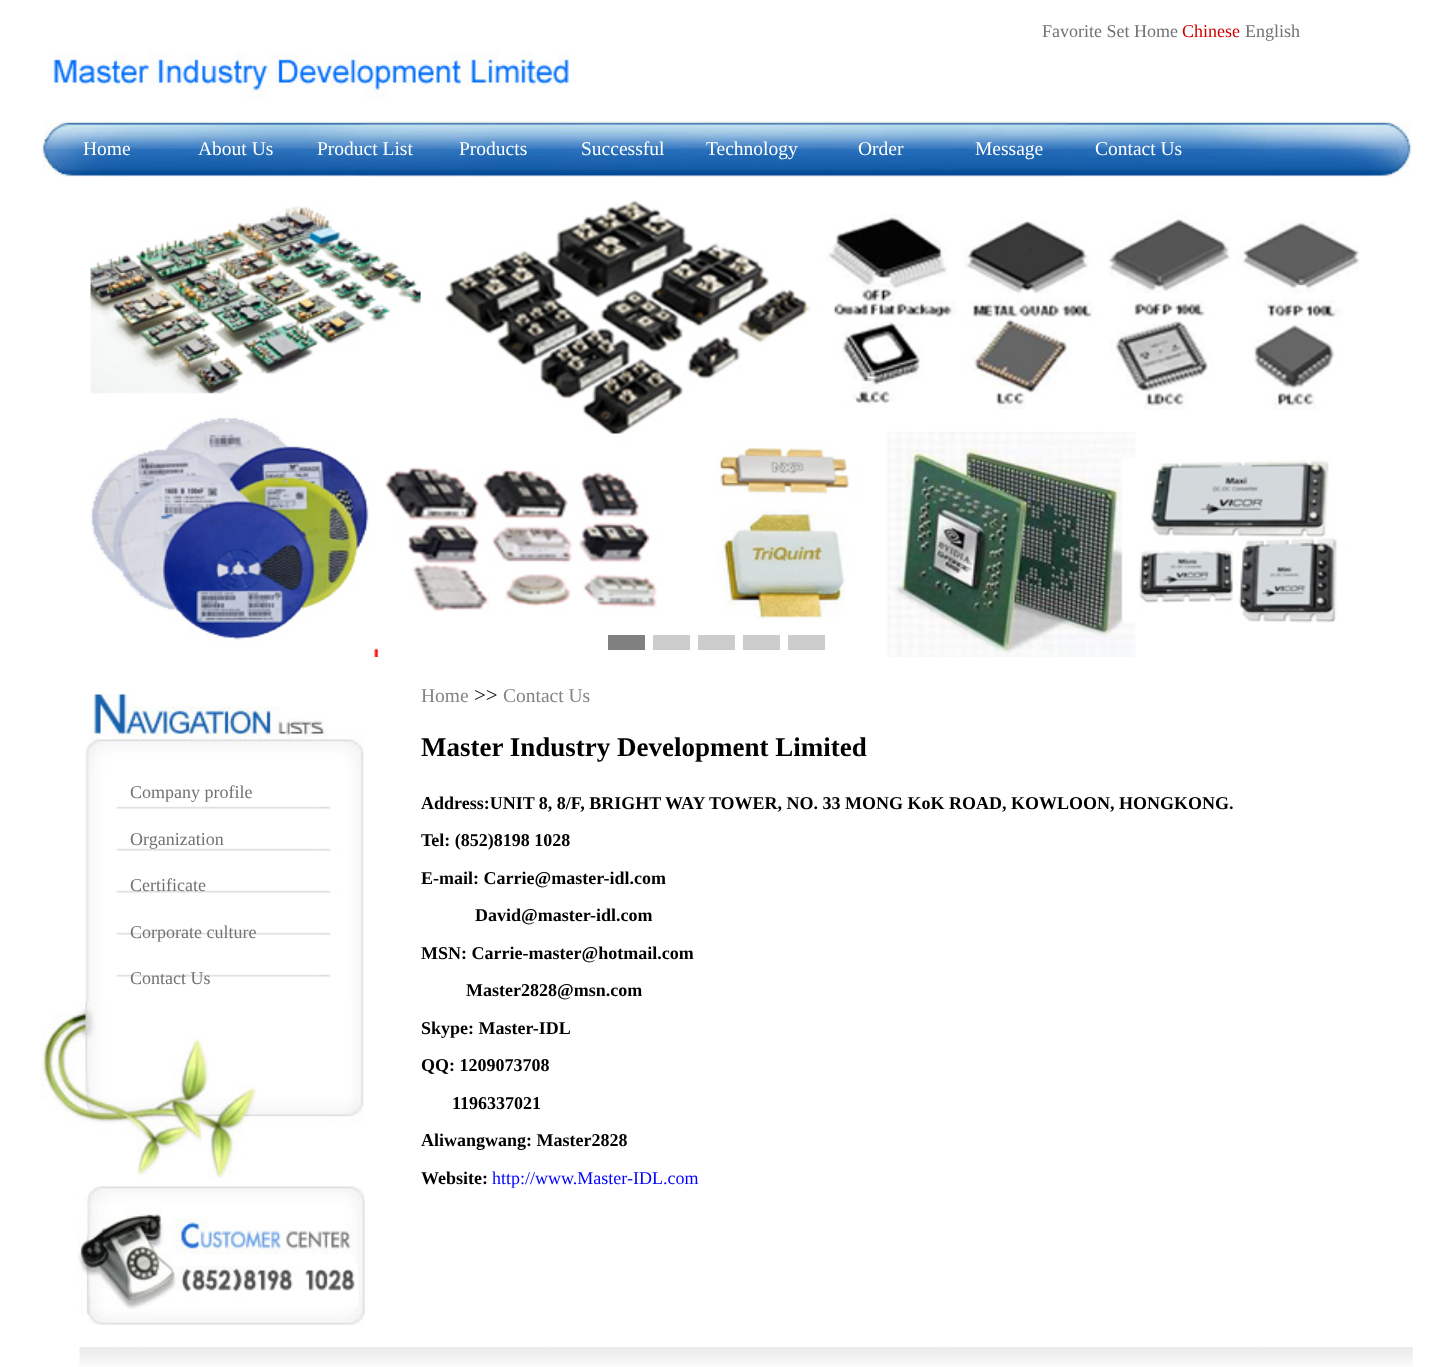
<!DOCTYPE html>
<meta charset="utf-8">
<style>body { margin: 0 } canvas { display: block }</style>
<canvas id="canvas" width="1453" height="1367"></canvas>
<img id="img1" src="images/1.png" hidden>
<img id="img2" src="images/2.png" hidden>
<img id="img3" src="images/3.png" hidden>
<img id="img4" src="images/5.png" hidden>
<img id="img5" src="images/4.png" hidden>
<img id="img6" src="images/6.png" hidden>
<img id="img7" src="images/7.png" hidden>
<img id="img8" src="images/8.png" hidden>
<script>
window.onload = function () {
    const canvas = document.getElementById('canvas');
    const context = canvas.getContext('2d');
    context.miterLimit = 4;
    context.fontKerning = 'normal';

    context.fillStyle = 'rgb(255, 255, 255)';
    context.fillRect(0, 0, 1453, 1367);
    context.drawImage(document.getElementById('img1'), 53, 51, 517, 48);
    context.drawImage(document.getElementById('img2'), 42, 121, 1370, 56);
    context.drawImage(document.getElementById('img3'), 90, 200, 1270, 457);
    context.fillStyle = 'rgb(128, 128, 128)';
    context.fillRect(608, 635, 37, 15);
    context.fillStyle = 'rgb(204, 204, 204)';
    context.fillRect(653, 635, 37, 15);
    context.fillRect(698, 635, 37, 15);
    context.fillRect(743, 635, 37, 15);
    context.fillRect(788, 635, 37, 15);
    context.drawImage(document.getElementById('img4'), 85, 769, 279, 233);
    context.drawImage(document.getElementById('img5'), 85, 694, 279, 76);
    context.drawImage(document.getElementById('img6'), 40, 1002, 324, 180);
    context.drawImage(document.getElementById('img7'), 77, 1186, 288, 139);
    context.drawImage(document.getElementById('img8'), 79, 1347, 1334, 20);
    context.font = '18px Liberation Serif';
    context.fillStyle = 'rgb(114, 114, 114)';
    context.fillText('Favorite Set Home', 1042, 37);
    context.fillStyle = 'rgb(204, 0, 0)';
    context.fillText('Chinese', 1182, 37);
    context.fillStyle = 'rgb(114, 114, 114)';
    context.fillText('English', 1245, 37);
    context.font = '19.5px Liberation Serif';
    context.fillStyle = 'rgb(255, 255, 255)';
    context.fillText('Home', 83, 155);
    context.fillText('About Us', 198, 155);
    context.fillText('Product List', 317, 155);
    context.fillText('Products', 459, 155);
    context.fillText('Successful', 581, 155);
    context.fillText('Technology', 706, 155);
    context.fillText('Order', 858, 155);
    context.fillText('Message', 975, 155);
    context.fillText('Contact Us', 1095, 155);
    context.font = '18px Liberation Serif';
    context.fillStyle = 'rgb(114, 114, 114)';
    context.fillText('Company profile', 130, 798);
    context.fillText('Organization', 130, 845);
    context.fillText('Certificate', 130, 891);
    context.fillText('Corporate culture', 130, 938);
    context.fillText('Contact Us', 130, 984);
    context.font = '19.5px Liberation Serif';
    context.fillStyle = 'rgb(132, 132, 132)';
    context.fillText('Home', 421, 702);
    context.font = '21px Liberation Serif';
    context.fillStyle = 'rgb(0, 0, 0)';
    context.fillText('>>', 474, 702);
    context.font = '19.5px Liberation Serif';
    context.fillStyle = 'rgb(132, 132, 132)';
    context.fillText('Contact Us', 503, 702);
    context.font = 'bold 27px Liberation Serif';
    context.fillStyle = 'rgb(0, 0, 0)';
    context.fillText('Master Industry Development Limited', 421, 756);
    context.font = 'bold 18px Liberation Serif';
    context.fillText('Address:UNIT 8, 8/F, BRIGHT WAY TOWER, NO. 33 MONG KoK ROAD, KOWLOON, HONGKONG.', 421, 809);
    context.fillText('Tel: (852)8198 1028', 421, 846);
    context.fillText('E-mail: Carrie@master-idl.com', 421, 884);
    context.fillText('David@master-idl.com', 475, 921);
    context.fillText('MSN: Carrie-master@hotmail.com', 421, 959);
    context.fillText('Master2828@msn.com', 466, 996);
    context.fillText('Skype: Master-IDL', 421, 1034);
    context.fillText('QQ: 1209073708', 421, 1071);
    context.fillText('1196337021', 452, 1109);
    context.fillText('Aliwangwang: Master2828', 421, 1146);
    context.fillText('Website:', 421, 1184);
    context.font = '18px Liberation Serif';
    context.fillStyle = 'rgb(0, 0, 255)';
    context.fillText('http://www.Master-IDL.com', 492, 1184);
};
</script>
